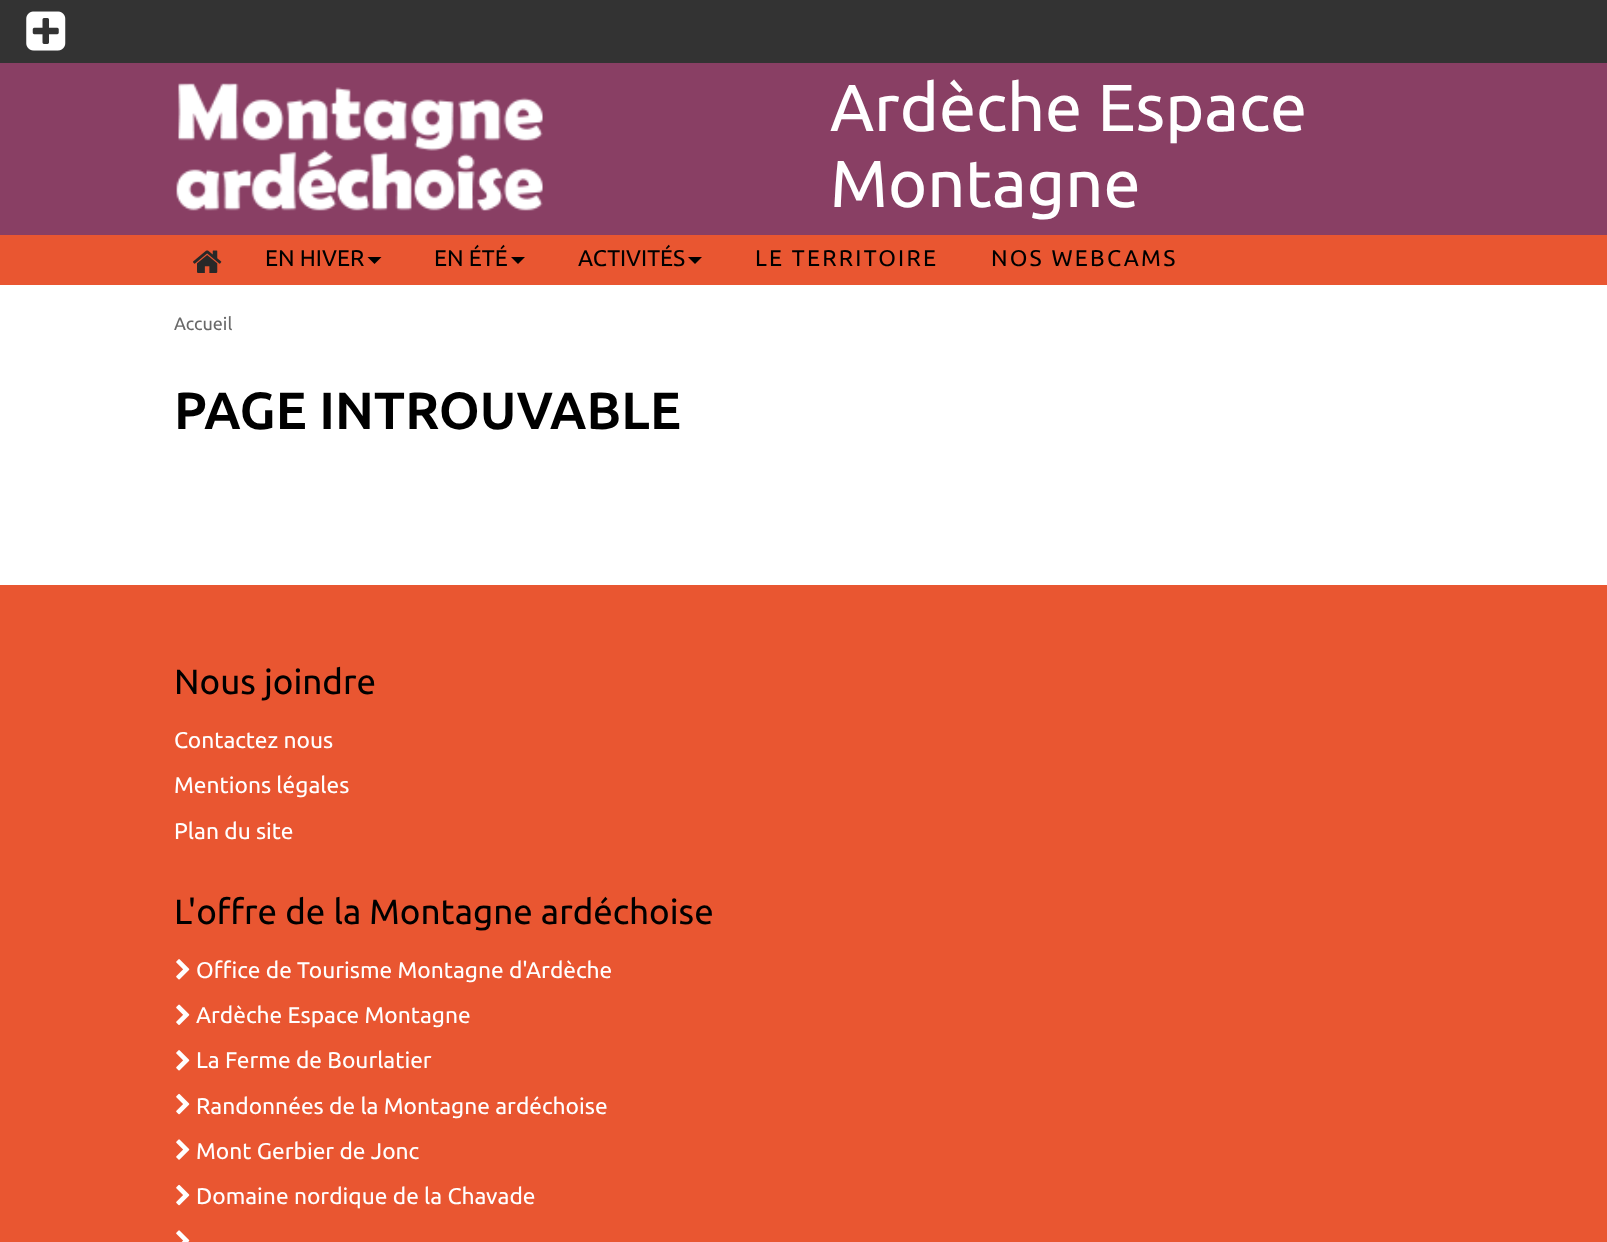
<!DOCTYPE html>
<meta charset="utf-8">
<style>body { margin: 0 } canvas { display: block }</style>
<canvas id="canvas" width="1607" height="1242"></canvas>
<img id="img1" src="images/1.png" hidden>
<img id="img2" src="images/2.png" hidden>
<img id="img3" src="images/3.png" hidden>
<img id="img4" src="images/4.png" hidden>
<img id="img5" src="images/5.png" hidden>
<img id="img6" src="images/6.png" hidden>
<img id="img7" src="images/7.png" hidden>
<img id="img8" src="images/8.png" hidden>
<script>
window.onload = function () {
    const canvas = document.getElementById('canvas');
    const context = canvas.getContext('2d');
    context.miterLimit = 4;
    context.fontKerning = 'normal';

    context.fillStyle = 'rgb(255, 255, 255)';
    context.fillRect(0, 0, 1607, 1242);
    context.fillStyle = 'rgb(51, 51, 51)';
    context.fillRect(0, 0, 1607, 63);
    context.drawImage(document.getElementById('img1'), 26, 11, 40, 40);
    context.fillStyle = 'rgb(137, 63, 100)';
    context.fillRect(0, 63, 1607, 172);
    context.drawImage(document.getElementById('img2'), 176, 83, 367, 128);
    context.fillStyle = 'rgb(233, 86, 49)';
    context.fillRect(0, 235, 1607, 50);
    context.drawImage(document.getElementById('img3'), 193, 250, 29, 23);
    context.fillStyle = 'rgb(0, 0, 0)';
    context.beginPath();
    context.moveTo(367.5, 257);
    context.lineTo(381.5, 257);
    context.lineTo(374.5, 264);
    context.closePath();
    context.fill();
    context.beginPath();
    context.moveTo(511, 257);
    context.lineTo(525, 257);
    context.lineTo(518, 264);
    context.closePath();
    context.fill();
    context.beginPath();
    context.moveTo(688, 257);
    context.lineTo(702, 257);
    context.lineTo(695, 264);
    context.closePath();
    context.fill();
    context.fillStyle = 'rgb(233, 86, 49)';
    context.fillRect(0, 585, 1607, 657);
    context.drawImage(document.getElementById('img4'), 176, 959, 14, 21);
    context.drawImage(document.getElementById('img5'), 176, 1004, 14, 21);
    context.drawImage(document.getElementById('img4'), 176, 1050, 14, 21);
    context.drawImage(document.getElementById('img6'), 176, 1093, 14, 22);
    context.drawImage(document.getElementById('img7'), 176, 1139, 14, 21);
    context.drawImage(document.getElementById('img6'), 176, 1184, 14, 22);
    context.drawImage(document.getElementById('img8'), 176, 1230, 14, 12);
    context.font = '66.5px Ubuntu';
    context.fillStyle = 'rgb(255, 255, 255)';
    context.fillText('Ardèche Espace', 830, 131);
    context.fillText('Montagne', 830, 207);
    context.font = '22.75px Ubuntu';
    context.fillStyle = 'rgb(0, 0, 0)';
    context.fillText('EN HIVER', 265, 266);
    context.fillText('EN ÉTÉ', 434, 266);
    context.fillText('ACTIVITÉS', 578, 266);
    context.letterSpacing = '2.25px';
    context.fillText('LE TERRITOIRE', 755, 266);
    context.fillText('NOS WEBCAMS', 991, 266);
    context.letterSpacing = '0px';
    context.font = '18px Ubuntu';
    context.fillStyle = 'rgb(105, 105, 105)';
    context.fillText('Accueil', 174, 330);
    context.font = 'bold 52.25px Ubuntu';
    context.fillStyle = 'rgb(0, 0, 0)';
    context.fillText('PAGE INTROUVABLE', 174, 429);
    context.font = '35px Ubuntu';
    context.fillText('Nous joindre', 174, 694);
    context.font = '22.75px Ubuntu';
    context.fillStyle = 'rgb(255, 255, 255)';
    context.fillText('Contactez nous', 174, 748);
    context.fillText('Mentions légales', 174, 793);
    context.fillText('Plan du site', 174, 839);
    context.font = '35px Ubuntu';
    context.fillStyle = 'rgb(0, 0, 0)';
    context.fillText('L\'offre de la Montagne ardéchoise', 174, 924);
    context.font = '22.75px Ubuntu';
    context.fillStyle = 'rgb(255, 255, 255)';
    context.fillText('Office de Tourisme Montagne d\'Ardèche', 196, 978);
    context.fillText('Ardèche Espace Montagne', 196, 1023);
    context.fillText('La Ferme de Bourlatier', 196, 1068);
    context.fillText('Randonnées de la Montagne ardéchoise', 196, 1114);
    context.fillText('Mont Gerbier de Jonc', 196, 1159);
    context.fillText('Domaine nordique de la Chavade', 196, 1204);
};
</script>
